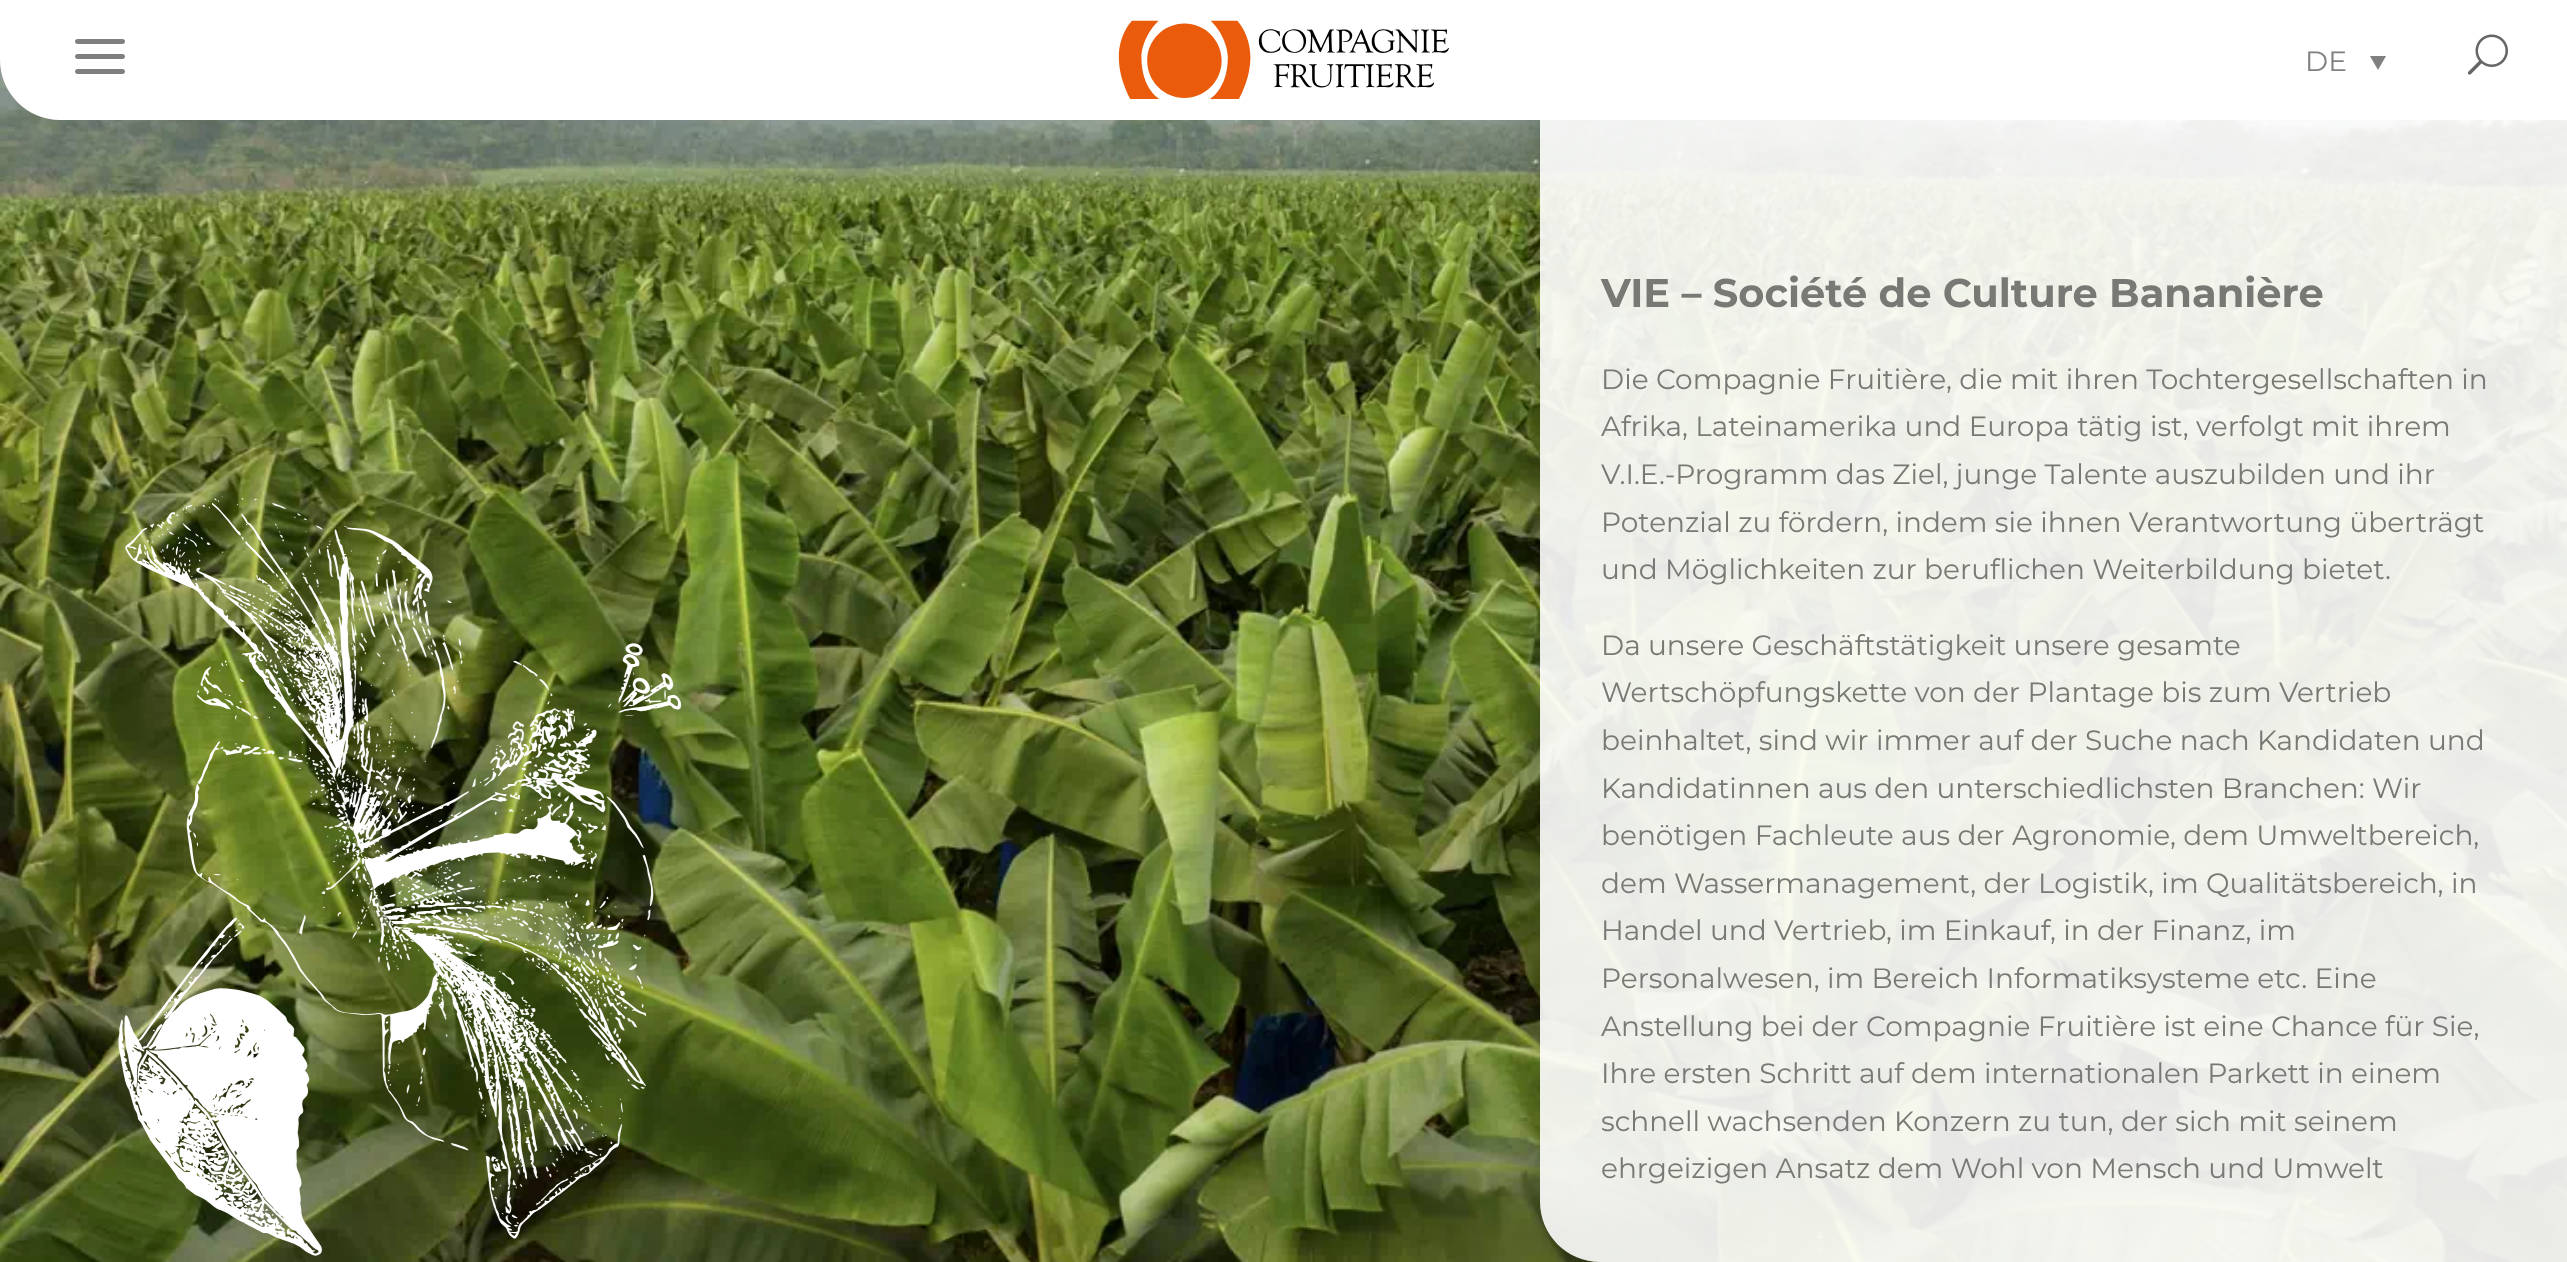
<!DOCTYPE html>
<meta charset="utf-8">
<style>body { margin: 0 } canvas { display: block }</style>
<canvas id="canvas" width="2567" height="1262"></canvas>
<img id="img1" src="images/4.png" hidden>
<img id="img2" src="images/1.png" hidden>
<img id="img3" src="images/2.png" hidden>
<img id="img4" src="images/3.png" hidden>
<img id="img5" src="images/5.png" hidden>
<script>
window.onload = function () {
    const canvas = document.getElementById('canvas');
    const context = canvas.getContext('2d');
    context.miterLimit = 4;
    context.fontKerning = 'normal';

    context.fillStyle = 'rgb(255, 255, 255)';
    context.fillRect(0, 0, 2567, 1262);
    context.drawImage(document.getElementById('img1'), 0, 60, 2567, 1202);
    context.save();
    context.beginPath();
    context.moveTo(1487, 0);
    context.lineTo(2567, 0);
    context.lineTo(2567, 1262);
    context.lineTo(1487, 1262);
    context.closePath();
    context.moveTo(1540, 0);
    context.lineTo(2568, 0);
    context.lineTo(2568, 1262);
    context.lineTo(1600, 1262);
    context.bezierCurveTo(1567, 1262, 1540, 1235, 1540, 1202);
    context.closePath();
    context.clip('evenodd');
    context.fillStyle = 'rgba(0, 0, 0, 0.3)';
    context.filter = 'blur(18px)';
    context.beginPath();
    context.roundRect(1542, 20, 988, 1222, 40);
    context.fill();
    context.filter = 'none';
    context.restore();
    context.fillStyle = 'rgba(255, 255, 255, 0.9)';
    context.beginPath();
    context.moveTo(1540, 0);
    context.lineTo(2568, 0);
    context.lineTo(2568, 1262);
    context.lineTo(1600, 1262);
    context.bezierCurveTo(1567, 1262, 1540, 1235, 1540, 1202);
    context.closePath();
    context.fill();
    context.fillStyle = 'rgb(255, 255, 255)';
    context.beginPath();
    context.moveTo(0, 0);
    context.lineTo(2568, 0);
    context.lineTo(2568, 120);
    context.lineTo(60, 120);
    context.bezierCurveTo(27, 120, 0, 93, 0, 60);
    context.closePath();
    context.fill();
    context.drawImage(document.getElementById('img2'), 75, 39, 50, 35);
    context.drawImage(document.getElementById('img3'), 1118, 20, 331, 79);
    context.fillStyle = 'rgb(128, 128, 128)';
    context.beginPath();
    context.moveTo(2370, 56);
    context.lineTo(2386, 56);
    context.lineTo(2378, 70);
    context.closePath();
    context.fill();
    context.drawImage(document.getElementById('img4'), 2467, 34, 41, 41);
    context.drawImage(document.getElementById('img5'), 118, 496, 564, 760);
    context.font = '28px Montserrat';
    context.fillText('DE', 2305, 71);
    context.font = 'bold 40px Montserrat';
    context.fillStyle = 'rgb(120, 121, 117)';
    context.fillText('VIE – Société de Culture Bananière', 1601, 307);
    context.font = '28px Montserrat';
    context.fillText('Die Compagnie Fruitière, die mit ihren Tochtergesellschaften in', 1601, 389);
    context.fillText('Afrika, Lateinamerika und Europa tätig ist, verfolgt mit ihrem', 1601, 436);
    context.fillText('V.I.E.-Programm das Ziel, junge Talente auszubilden und ihr', 1601, 484);
    context.fillText('Potenzial zu fördern, indem sie ihnen Verantwortung überträgt', 1601, 532);
    context.fillText('und Möglichkeiten zur beruflichen Weiterbildung bietet.', 1601, 579);
    context.fillText('Da unsere Geschäftstätigkeit unsere gesamte', 1601, 655);
    context.fillText('Wertschöpfungskette von der Plantage bis zum Vertrieb', 1601, 702);
    context.fillText('beinhaltet, sind wir immer auf der Suche nach Kandidaten und', 1601, 750);
    context.fillText('Kandidatinnen aus den unterschiedlichsten Branchen: Wir', 1601, 798);
    context.fillText('benötigen Fachleute aus der Agronomie, dem Umweltbereich,', 1601, 845);
    context.fillText('dem Wassermanagement, der Logistik, im Qualitätsbereich, in', 1601, 893);
    context.fillText('Handel und Vertrieb, im Einkauf, in der Finanz, im', 1601, 940);
    context.fillText('Personalwesen, im Bereich Informatiksysteme etc. Eine', 1601, 988);
    context.fillText('Anstellung bei der Compagnie Fruitière ist eine Chance für Sie,', 1601, 1036);
    context.fillText('Ihre ersten Schritt auf dem internationalen Parkett in einem', 1601, 1083);
    context.fillText('schnell wachsenden Konzern zu tun, der sich mit seinem', 1601, 1131);
    context.fillText('ehrgeizigen Ansatz dem Wohl von Mensch und Umwelt', 1601, 1178);
};
</script>
